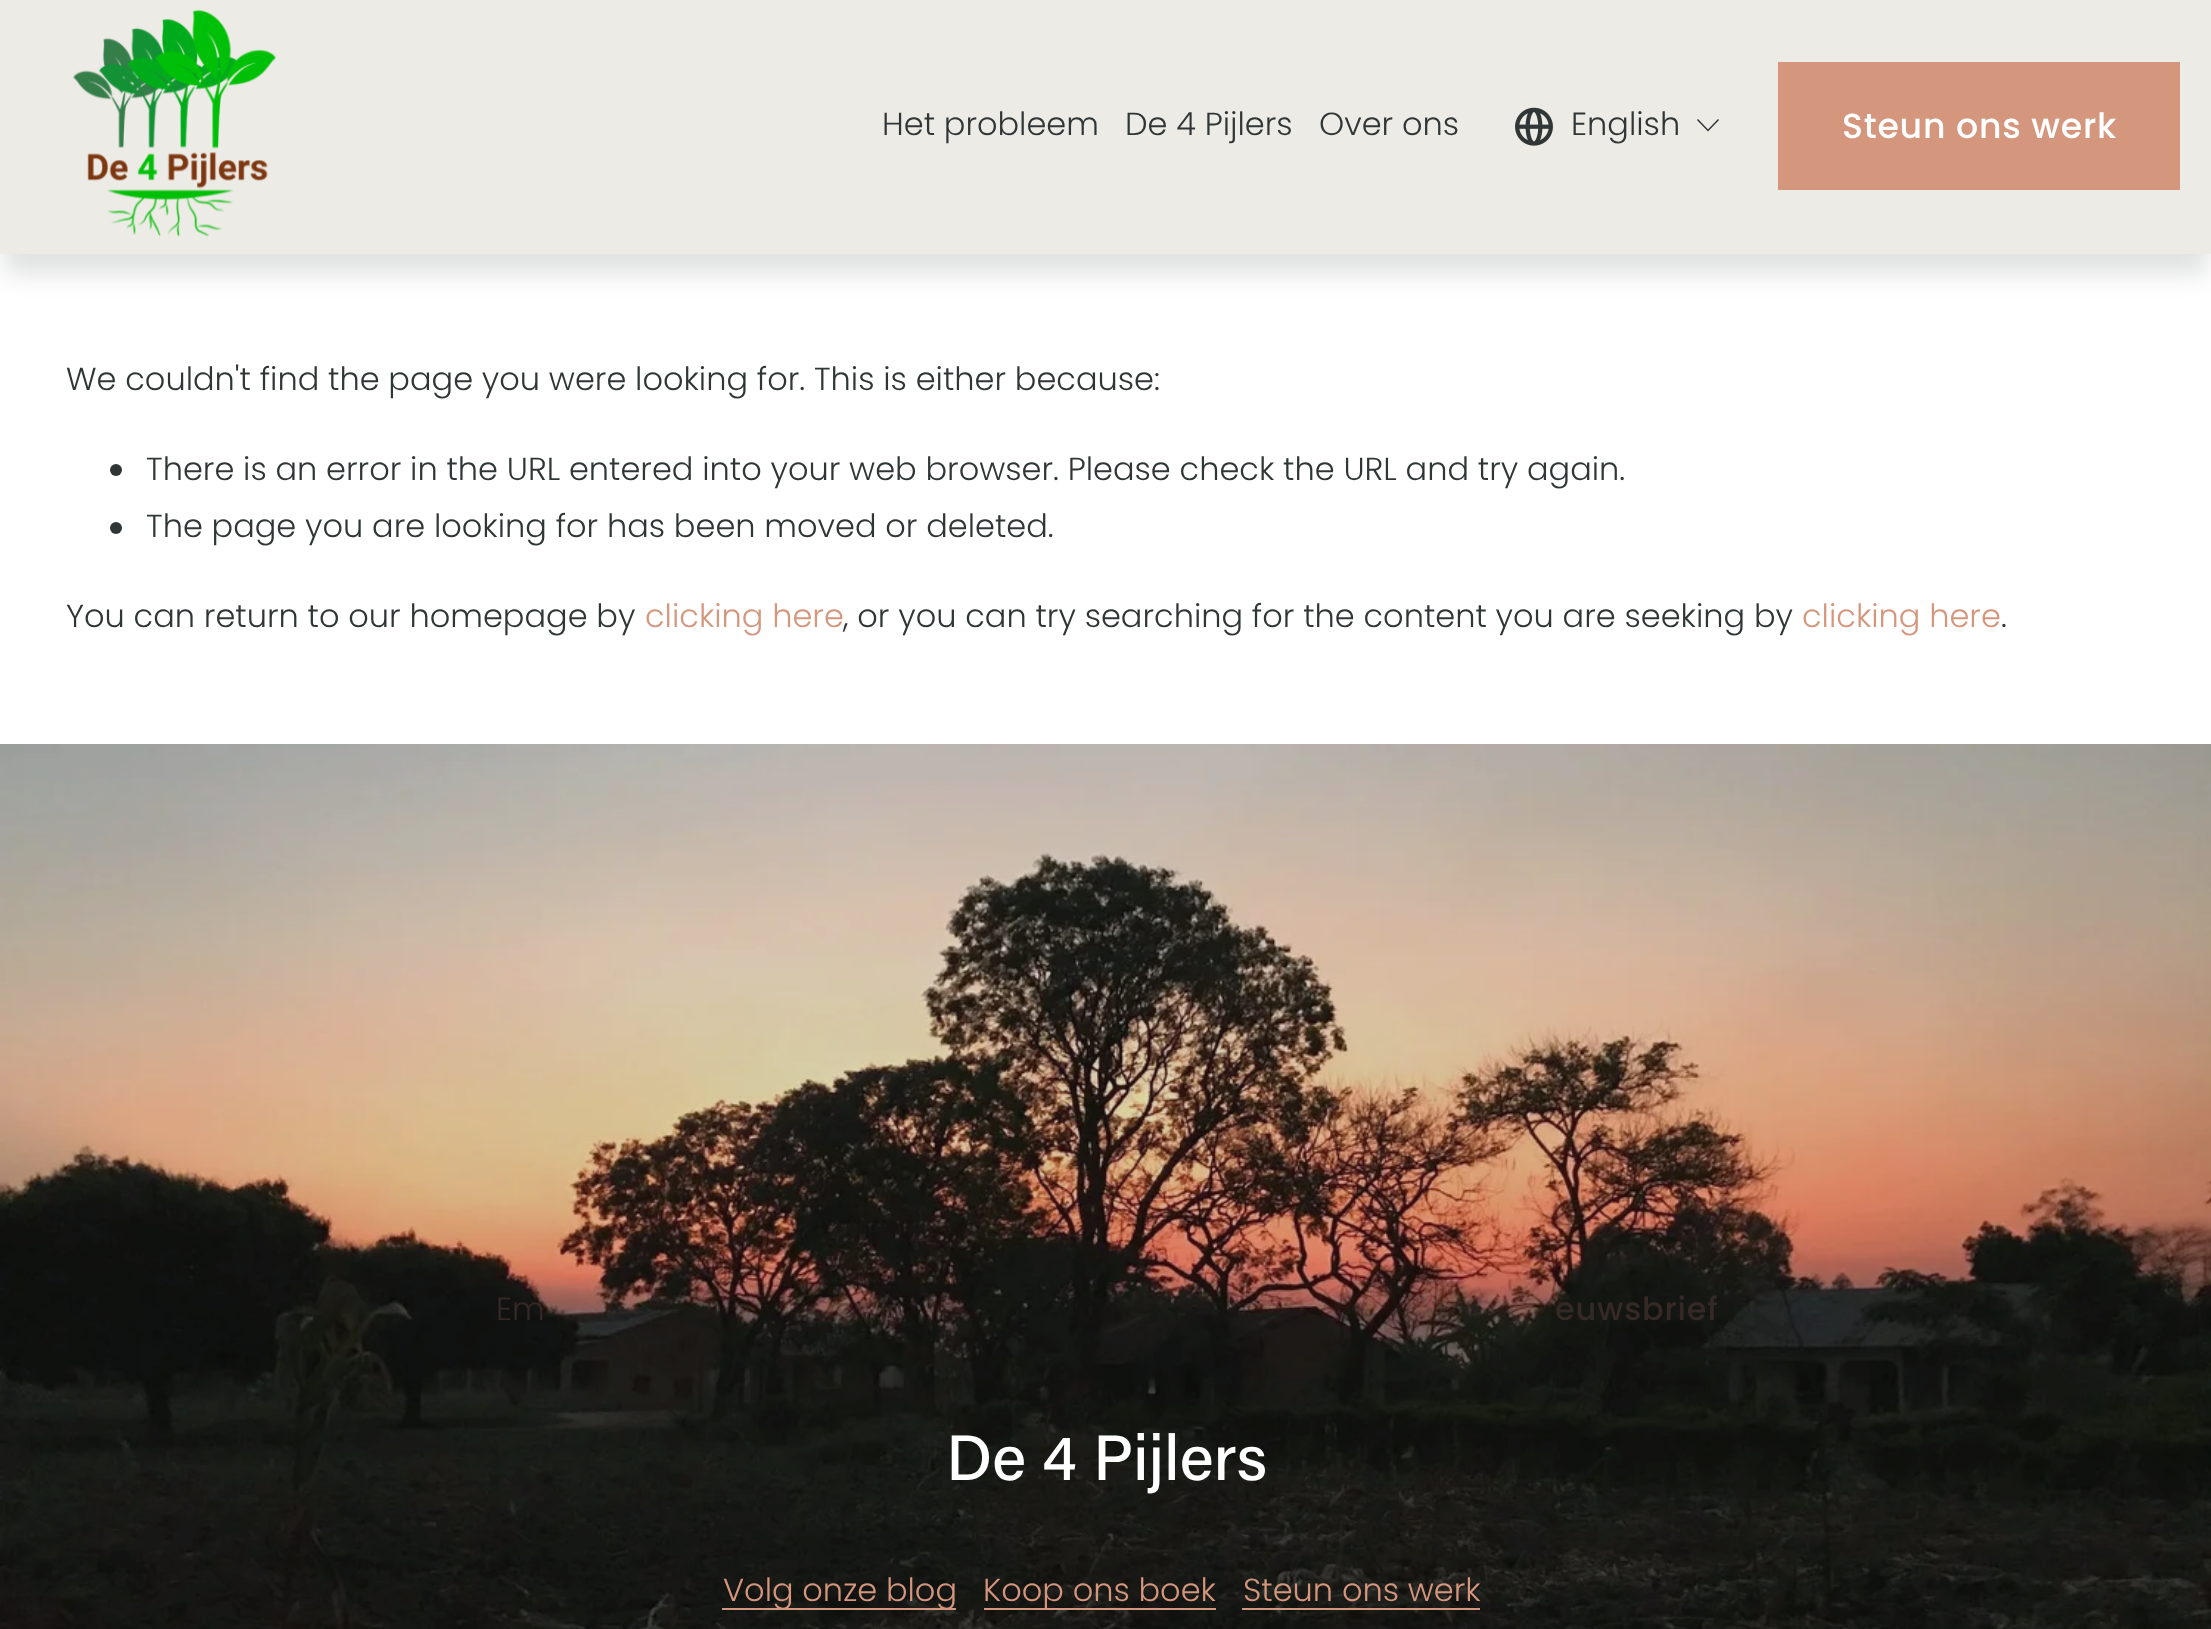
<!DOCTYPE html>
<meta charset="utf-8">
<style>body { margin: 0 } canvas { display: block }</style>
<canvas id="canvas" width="2211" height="1629"></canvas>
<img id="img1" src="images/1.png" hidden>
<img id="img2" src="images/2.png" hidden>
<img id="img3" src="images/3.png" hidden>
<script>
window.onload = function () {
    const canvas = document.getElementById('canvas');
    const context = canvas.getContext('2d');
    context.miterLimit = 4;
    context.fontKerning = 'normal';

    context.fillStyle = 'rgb(255, 255, 255)';
    context.fillRect(0, 0, 2211, 1629);
    context.fillStyle = 'rgb(224, 225, 225)';
    context.filter = 'blur(12px)';
    context.beginPath();
    context.rect(4, 26, 2204, 248);
    context.fill();
    context.filter = 'none';
    context.fillStyle = 'rgb(237, 235, 230)';
    context.fillRect(0, 0, 2211, 254);
    context.drawImage(document.getElementById('img1'), 73, 9, 203, 228);
    context.drawImage(document.getElementById('img2'), 1515, 107, 38, 39);
    context.beginPath();
    context.moveTo(1718, 120);
    context.lineTo(1708, 130.5);
    context.lineTo(1698, 120);
    context.strokeStyle = 'rgb(48, 54, 54)';
    context.lineWidth = 1.5;
    context.lineCap = 'square';
    context.stroke();
    context.fillStyle = 'rgb(212, 150, 125)';
    context.fillRect(1778, 62, 402, 128);
    context.fillStyle = 'rgb(48, 54, 54)';
    context.beginPath();
    context.arc(116, 470, 6, 0, 2 * Math.PI);
    context.fill();
    context.beginPath();
    context.arc(116, 528, 6, 0, 2 * Math.PI);
    context.fill();
    context.drawImage(document.getElementById('img3'), 0, 744, 2211, 885);
    context.fillStyle = 'rgb(212, 150, 125)';
    context.fillRect(722, 1608, 234, 2);
    context.fillRect(984, 1608, 232, 2);
    context.fillRect(1242, 1608, 238, 2);
    context.font = '300 32px Poppins';
    context.fillStyle = 'rgb(48, 54, 54)';
    context.fillText('Het probleem', 882, 135);
    context.fillText('De 4 Pijlers', 1125, 135);
    context.fillText('Over ons', 1319, 135);
    context.fillText('English', 1571, 135);
    context.letterSpacing = '0.75px';
    context.font = '500 34.75px Poppins';
    context.fillStyle = 'rgb(255, 255, 255)';
    context.fillText('Steun ons werk', 1842, 138);
    context.letterSpacing = '0px';
    context.font = '300 32px Poppins';
    context.fillStyle = 'rgb(48, 54, 54)';
    context.fillText('We couldn\'t find the page you were looking for. This is either because:', 66, 390);
    context.fillText('There is an error in the URL entered into your web browser. Please check the URL and try again.', 146, 480);
    context.fillText('The page you are looking for has been moved or deleted.', 146, 537);
    context.fillText('You can return to our homepage by', 66, 627);
    context.fillStyle = 'rgb(212, 150, 125)';
    context.fillText('clicking here', 645, 627);
    context.fillStyle = 'rgb(48, 54, 54)';
    context.fillText(', or you can try searching for the content you are seeking by', 843, 627);
    context.fillStyle = 'rgb(212, 150, 125)';
    context.fillText('clicking here', 1802, 627);
    context.fillStyle = 'rgb(48, 54, 54)';
    context.fillText('.', 2001, 627);
    context.fillStyle = 'rgb(52, 41, 37)';
    context.fillText('Em', 496, 1320);
    context.letterSpacing = '0.75px';
    context.font = '500 32px Poppins';
    context.fillText('euwsbrief', 1555, 1320);
    context.letterSpacing = '0px';
    context.font = '500 64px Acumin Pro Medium';
    context.fillStyle = 'rgb(255, 255, 255)';
    context.fillText('De 4 Pijlers', 946, 1480);
    context.font = '300 32px Poppins';
    context.fillStyle = 'rgb(212, 150, 125)';
    context.fillText('Volg onze blog', 723, 1601);
    context.fillText('Koop ons boek', 983, 1601);
    context.fillText('Steun ons werk', 1243, 1601);
};
</script>
